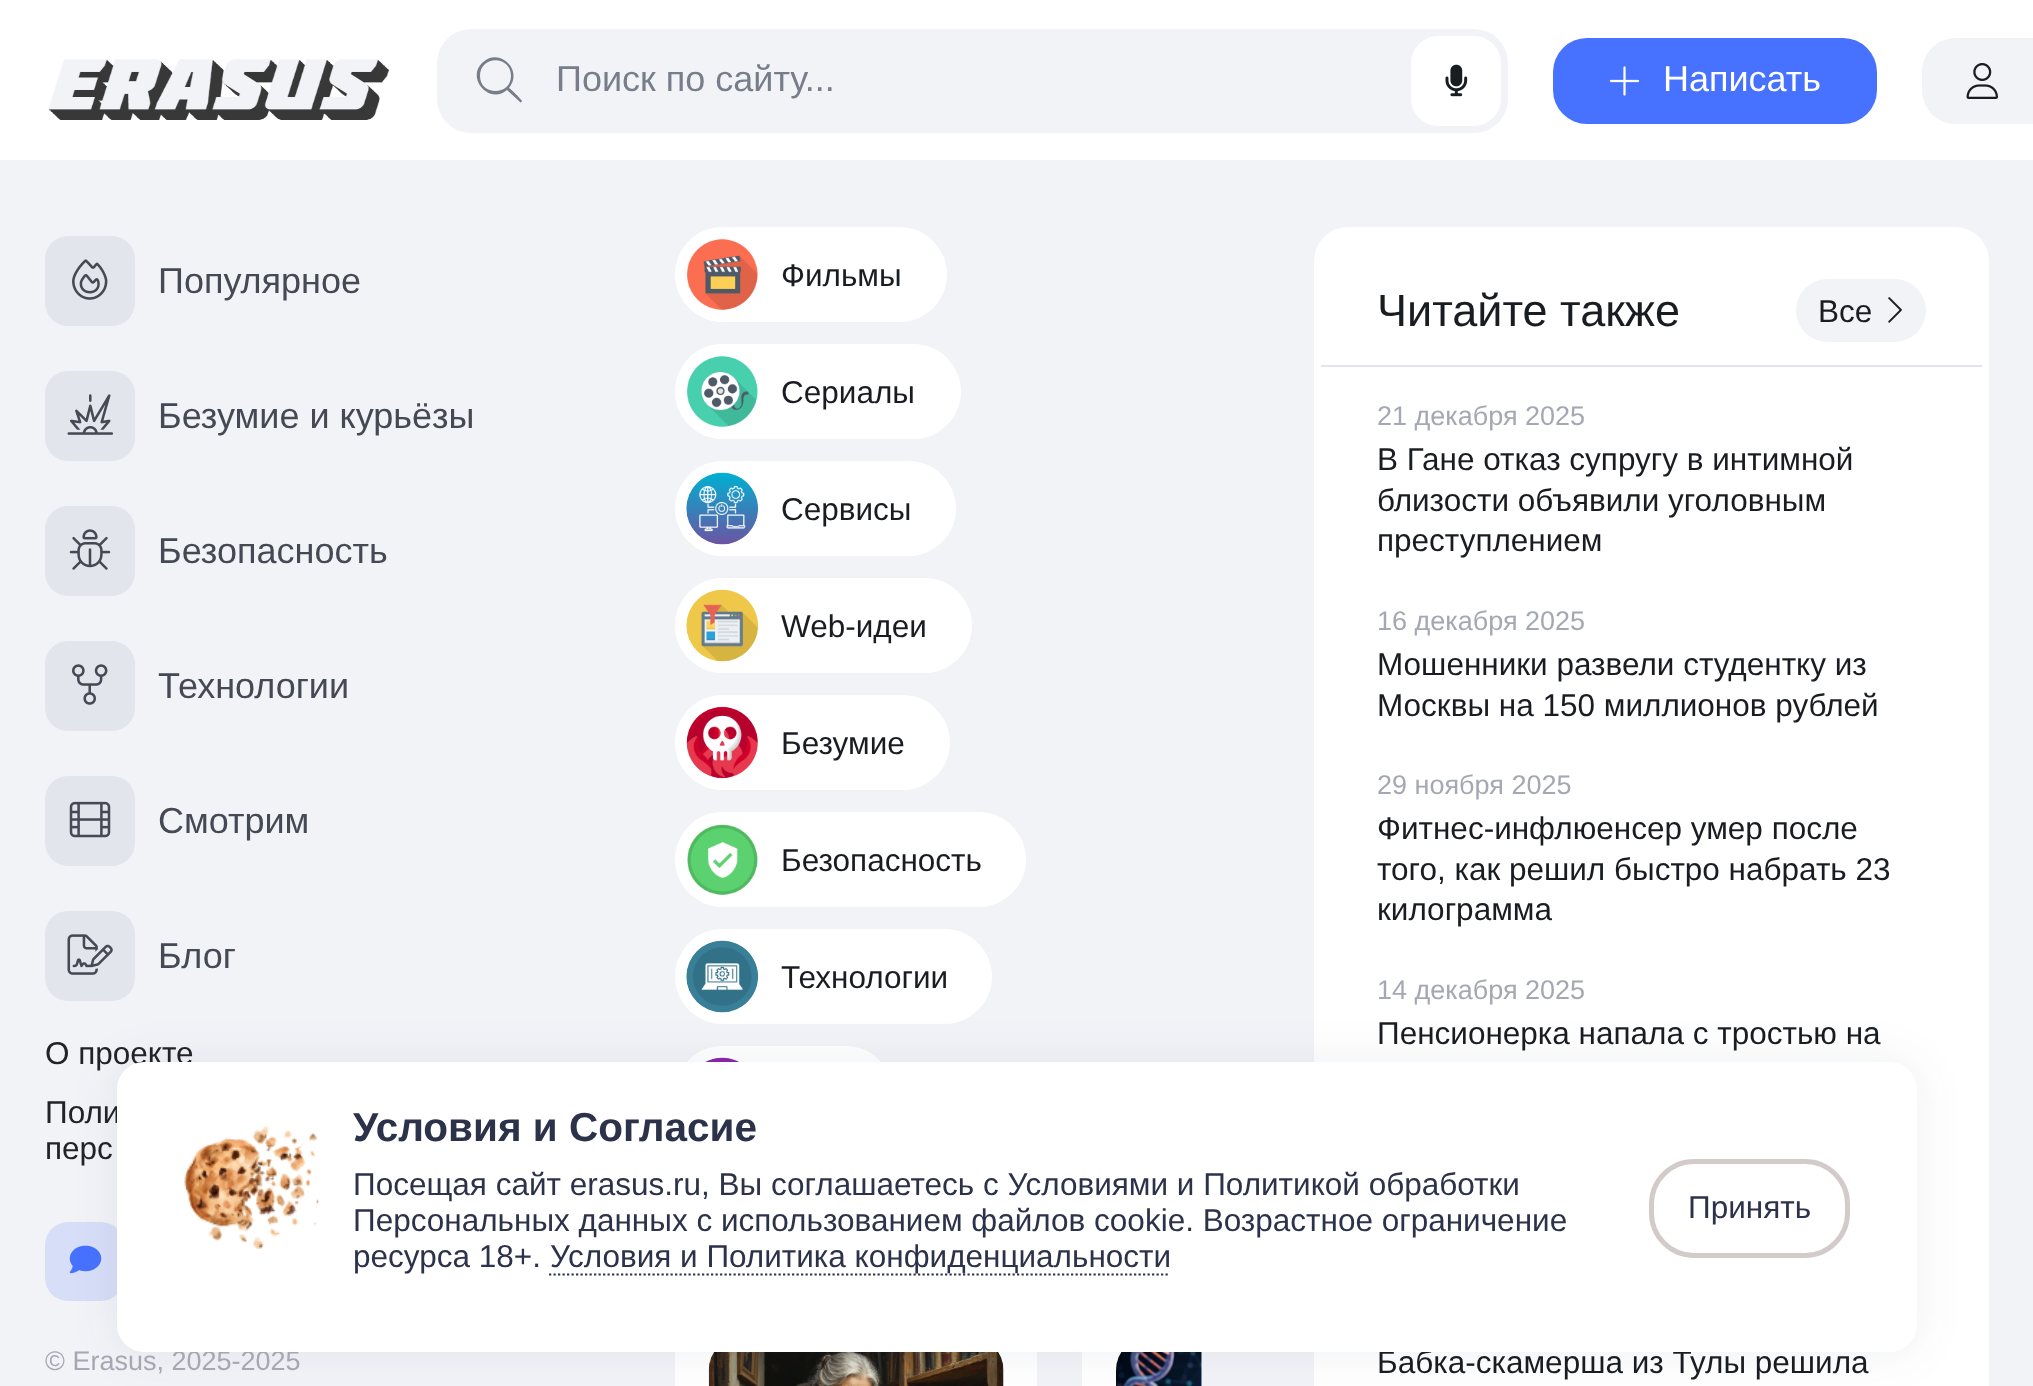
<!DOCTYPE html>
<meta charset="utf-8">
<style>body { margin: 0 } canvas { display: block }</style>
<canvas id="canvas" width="2033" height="1386"></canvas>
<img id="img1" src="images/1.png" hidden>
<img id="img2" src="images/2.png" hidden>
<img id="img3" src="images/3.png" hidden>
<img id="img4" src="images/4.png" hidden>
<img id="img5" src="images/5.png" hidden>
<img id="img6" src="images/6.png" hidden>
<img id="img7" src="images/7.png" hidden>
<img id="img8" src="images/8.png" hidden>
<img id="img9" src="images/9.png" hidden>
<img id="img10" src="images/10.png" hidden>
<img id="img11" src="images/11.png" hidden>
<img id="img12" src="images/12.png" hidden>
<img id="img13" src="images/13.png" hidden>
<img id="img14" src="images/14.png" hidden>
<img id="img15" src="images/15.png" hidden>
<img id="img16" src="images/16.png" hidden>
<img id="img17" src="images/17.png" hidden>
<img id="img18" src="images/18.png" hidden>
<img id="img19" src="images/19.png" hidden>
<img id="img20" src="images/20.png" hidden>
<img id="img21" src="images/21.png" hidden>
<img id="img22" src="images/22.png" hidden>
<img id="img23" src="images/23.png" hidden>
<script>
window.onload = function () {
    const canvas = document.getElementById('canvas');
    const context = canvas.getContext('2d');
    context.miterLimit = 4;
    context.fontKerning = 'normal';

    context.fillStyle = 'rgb(242, 243, 247)';
    context.fillRect(0, 0, 2033, 1386);
    context.fillStyle = 'rgb(255, 255, 255)';
    context.fillRect(0, 0, 2033, 160);
    context.drawImage(document.getElementById('img1'), 48, 59, 342, 61);
    context.fillStyle = 'rgb(242, 243, 247)';
    context.beginPath();
    context.roundRect(437, 29, 1071, 104, 34);
    context.fill();
    context.fillStyle = 'rgb(119, 126, 137)';
    context.beginPath();
    context.moveTo(511, 76);
    context.bezierCurveTo(511, 55, 480, 55, 480, 76);
    context.bezierCurveTo(480, 96, 511, 96, 511, 76);
    context.closePath();
    context.moveTo(507, 90);
    context.bezierCurveTo(490, 105, 466, 79, 482, 63);
    context.bezierCurveTo(499, 46, 524, 70, 509, 88);
    context.bezierCurveTo(511, 89, 522, 100, 522, 101);
    context.bezierCurveTo(522, 102, 520, 103, 520, 102);
    context.closePath();
    context.fill();
    context.fillStyle = 'rgb(255, 255, 255)';
    context.beginPath();
    context.roundRect(1411, 36, 90, 90, 27);
    context.fill();
    context.drawImage(document.getElementById('img2'), 1445, 64, 23, 33);
    context.fillStyle = 'rgb(71, 114, 255)';
    context.beginPath();
    context.roundRect(1553, 38, 324, 86, 34);
    context.fill();
    context.drawImage(document.getElementById('img3'), 1609, 66, 31, 30);
    context.fillStyle = 'rgb(242, 243, 247)';
    context.beginPath();
    context.moveTo(1956, 38);
    context.lineTo(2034, 38);
    context.lineTo(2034, 124);
    context.lineTo(1956, 124);
    context.bezierCurveTo(1937, 124, 1922, 109, 1922, 90);
    context.lineTo(1922, 72);
    context.bezierCurveTo(1922, 53, 1937, 38, 1956, 38);
    context.closePath();
    context.fill();
    context.drawImage(document.getElementById('img4'), 1966, 63, 32, 36);
    context.fillStyle = 'rgb(227, 229, 237)';
    context.beginPath();
    context.roundRect(45, 236, 90, 90, 23);
    context.fill();
    context.drawImage(document.getElementById('img5'), 72, 259, 36, 41);
    context.beginPath();
    context.roundRect(45, 371, 90, 90, 23);
    context.fill();
    context.drawImage(document.getElementById('img6'), 67, 394, 46, 41);
    context.beginPath();
    context.roundRect(45, 506, 90, 90, 23);
    context.fill();
    context.drawImage(document.getElementById('img7'), 69, 529, 42, 41);
    context.beginPath();
    context.roundRect(45, 641, 90, 90, 23);
    context.fill();
    context.drawImage(document.getElementById('img8'), 72, 664, 36, 41);
    context.beginPath();
    context.roundRect(45, 776, 90, 90, 23);
    context.fill();
    context.drawImage(document.getElementById('img9'), 69, 801, 42, 37);
    context.beginPath();
    context.roundRect(45, 911, 90, 90, 23);
    context.fill();
    context.drawImage(document.getElementById('img10'), 67, 934, 46, 41);
    context.fillStyle = 'rgb(215, 222, 248)';
    context.beginPath();
    context.roundRect(45, 1222, 79, 79, 23);
    context.fill();
    context.drawImage(document.getElementById('img11'), 69, 1245, 33, 29);
    context.fillStyle = 'rgb(255, 255, 255)';
    context.beginPath();
    context.roundRect(675, 227, 272, 95, 47.5);
    context.fill();
    context.drawImage(document.getElementById('img12'), 687, 239, 71, 71);
    context.beginPath();
    context.roundRect(675, 344, 286, 95, 47.5);
    context.fill();
    context.drawImage(document.getElementById('img13'), 687, 356, 71, 71);
    context.beginPath();
    context.roundRect(675, 461, 281, 95, 47.5);
    context.fill();
    context.drawImage(document.getElementById('img14'), 686, 472, 73, 73);
    context.beginPath();
    context.roundRect(675, 578, 297, 95, 47.5);
    context.fill();
    context.drawImage(document.getElementById('img15'), 686, 589, 73, 73);
    context.beginPath();
    context.roundRect(675, 695, 275, 95, 47.5);
    context.fill();
    context.drawImage(document.getElementById('img16'), 686, 706, 72, 73);
    context.beginPath();
    context.roundRect(675, 812, 351, 95, 47.5);
    context.fill();
    context.drawImage(document.getElementById('img17'), 687, 824, 71, 71);
    context.beginPath();
    context.roundRect(675, 929, 317, 95, 47.5);
    context.fill();
    context.drawImage(document.getElementById('img18'), 686, 940, 73, 73);
    context.beginPath();
    context.roundRect(675, 1046, 218, 95, 47.5);
    context.fill();
    context.drawImage(document.getElementById('img19'), 705, 1057, 34, 5);
    context.fillRect(675, 1352, 362, 34);
    context.drawImage(document.getElementById('img20'), 708, 1352, 296, 34);
    context.fillRect(1082, 1352, 120, 34);
    context.drawImage(document.getElementById('img21'), 1116, 1352, 86, 34);
    context.beginPath();
    context.roundRect(1314, 227, 675, 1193, 34);
    context.fill();
    context.fillStyle = 'rgb(227, 229, 237)';
    context.fillRect(1321, 365, 661, 2);
    context.fillStyle = 'rgb(242, 243, 247)';
    context.beginPath();
    context.roundRect(1796, 279, 130, 63, 31.5);
    context.fill();
    context.drawImage(document.getElementById('img22'), 1888, 297, 14, 26);
    context.fillStyle = 'rgba(44, 50, 73, 0.08)';
    context.filter = 'blur(22.5px)';
    context.beginPath();
    context.roundRect(117, 1062, 1800, 290, 27);
    context.fill();
    context.filter = 'none';
    context.font = '36px Liberation Sans';
    context.fillStyle = 'rgb(119, 126, 137)';
    context.fillText('Поиск по сайту...', 556, 91);
    context.fillStyle = 'rgb(255, 255, 255)';
    context.fillText('Написать', 1663, 91);
    context.fillStyle = 'rgb(68, 73, 84)';
    context.fillText('Популярное', 158, 293);
    context.fillText('Безумие и курьёзы', 158, 428);
    context.fillText('Безопасность', 158, 563);
    context.fillText('Технологии', 158, 698);
    context.fillText('Смотрим', 158, 833);
    context.fillText('Блог', 158, 968);
    context.font = '31.5px Liberation Sans';
    context.fillStyle = 'rgb(33, 35, 39)';
    context.fillText('О проекте', 45, 1064);
    context.fillText('Поли', 45, 1123);
    context.fillText('перс', 45, 1159);
    context.font = '27px Liberation Sans';
    context.fillStyle = 'rgb(164, 168, 178)';
    context.fillText('© Erasus, 2025-2025', 45, 1370);
    context.font = '31.5px Liberation Sans';
    context.fillStyle = 'rgb(25, 28, 32)';
    context.fillText('Фильмы', 781, 286);
    context.fillText('Сериалы', 781, 403);
    context.fillText('Сервисы', 781, 520);
    context.fillText('Web-идеи', 781, 637);
    context.fillText('Безумие', 781, 754);
    context.fillText('Безопасность', 781, 871);
    context.fillText('Технологии', 781, 988);
    context.font = '45px Liberation Sans';
    context.fillText('Читайте также', 1377, 326);
    context.font = '31.5px Liberation Sans';
    context.fillText('Все', 1818, 322);
    context.font = '27px Liberation Sans';
    context.fillStyle = 'rgb(164, 168, 178)';
    context.fillText('21 декабря 2025', 1377, 425);
    context.font = '31.5px Liberation Sans';
    context.fillStyle = 'rgb(25, 28, 32)';
    context.fillText('В Гане отказ супругу в интимной', 1377, 470);
    context.fillText('близости объявили уголовным', 1377, 511);
    context.fillText('преступлением', 1377, 551);
    context.font = '27px Liberation Sans';
    context.fillStyle = 'rgb(164, 168, 178)';
    context.fillText('16 декабря 2025', 1377, 630);
    context.font = '31.5px Liberation Sans';
    context.fillStyle = 'rgb(25, 28, 32)';
    context.fillText('Мошенники развели студентку из', 1377, 675);
    context.fillText('Москвы на 150 миллионов рублей', 1377, 716);
    context.font = '27px Liberation Sans';
    context.fillStyle = 'rgb(164, 168, 178)';
    context.fillText('29 ноября 2025', 1377, 794);
    context.font = '31.5px Liberation Sans';
    context.fillStyle = 'rgb(25, 28, 32)';
    context.fillText('Фитнес-инфлюенсер умер после', 1377, 839);
    context.fillText('того, как решил быстро набрать 23', 1377, 880);
    context.fillText('килограмма', 1377, 920);
    context.font = '27px Liberation Sans';
    context.fillStyle = 'rgb(164, 168, 178)';
    context.fillText('14 декабря 2025', 1377, 999);
    context.font = '31.5px Liberation Sans';
    context.fillStyle = 'rgb(25, 28, 32)';
    context.fillText('Пенсионерка напала с тростью на', 1377, 1044);
    context.fillText('Бабка-скамерша из Тулы решила', 1377, 1373);
    context.fillStyle = 'rgb(255, 255, 255)';
    context.beginPath();
    context.roundRect(117, 1062, 1800, 290, 27);
    context.fill();
    context.drawImage(document.getElementById('img23'), 184, 1126, 136, 123);
    context.font = 'bold 40.5px Liberation Sans';
    context.fillStyle = 'rgb(44, 50, 73)';
    context.fillText('Условия и Согласие', 353, 1141);
    context.font = '31.5px Liberation Sans';
    context.fillText('Посещая сайт erasus.ru, Вы соглашаетесь с Условиями и Политикой обработки', 353, 1195);
    context.fillText('Персональных данных с использованием файлов cookie. Возрастное ограничение', 353, 1231);
    context.fillText('ресурса 18+.', 353, 1267);
    context.beginPath();
    context.moveTo(549, 1274.5);
    context.lineTo(1170, 1274.5);
    context.strokeStyle = 'rgb(44, 50, 73)';
    context.lineWidth = 2.2;
    context.setLineDash([2.25, 2.25]);
    context.stroke();
    context.fillText('Условия и Политика конфиденциальности', 550, 1267);
    context.beginPath();
    context.roundRect(1651.5, 1161.5, 196, 94, 42.5);
    context.strokeStyle = 'rgb(211, 203, 201)';
    context.lineWidth = 5;
    context.setLineDash([]);
    context.stroke();
    context.fillText('Принять', 1688, 1218);
};
</script>
